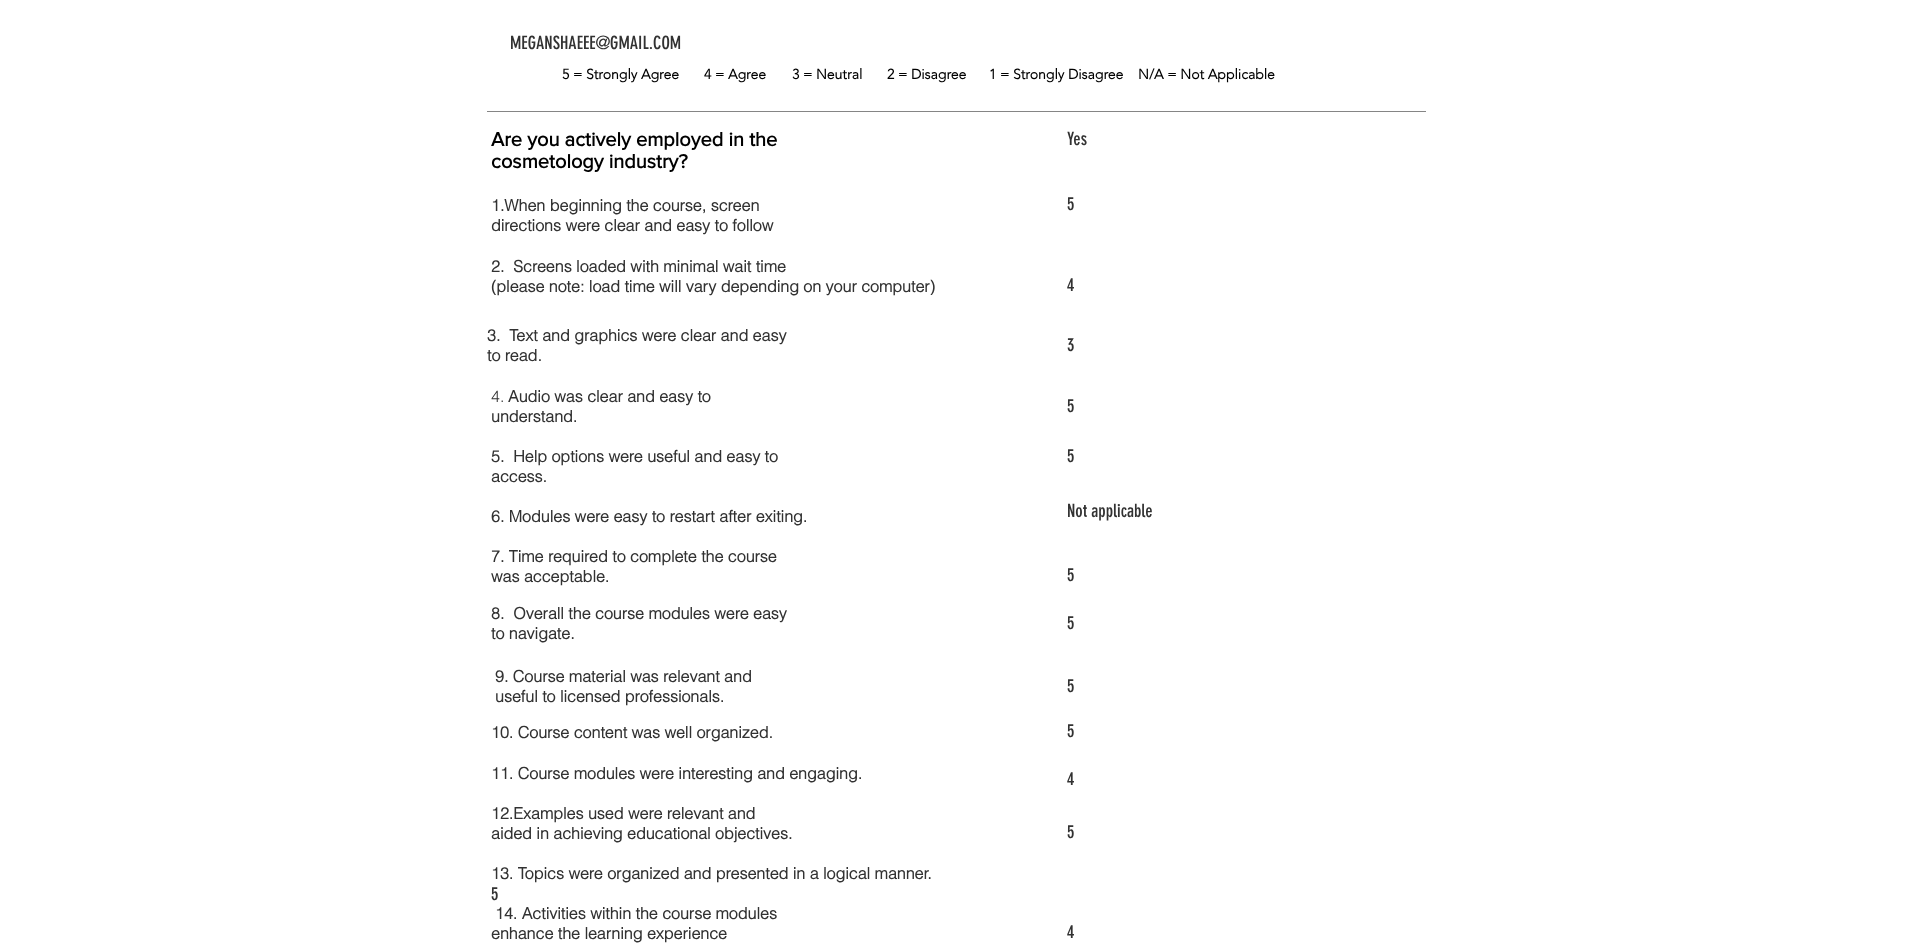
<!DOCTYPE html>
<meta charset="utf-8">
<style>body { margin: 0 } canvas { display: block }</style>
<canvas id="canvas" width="1913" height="948"></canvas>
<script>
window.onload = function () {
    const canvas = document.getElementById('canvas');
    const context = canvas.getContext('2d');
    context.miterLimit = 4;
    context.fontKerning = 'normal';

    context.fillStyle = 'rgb(255, 255, 255)';
    context.fillRect(0, 0, 1913, 948);
    context.fillStyle = 'rgb(133, 133, 133)';
    context.fillRect(487, 111, 939, 1);
    context.font = '18px "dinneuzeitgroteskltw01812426"';
    context.fillStyle = 'rgb(50, 50, 50)';
    context.fillText('MEGANSHAEEE@GMAIL.COM', 510, 49);
    context.font = 'bold 14px "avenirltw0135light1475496"';
    context.fillStyle = 'rgb(0, 0, 0)';
    context.fillText('5 = Strongly Agree', 562, 79);
    context.fillText('4 = Agree', 704, 79);
    context.fillText('3 = Neutral', 792, 79);
    context.fillText('2 = Disagree', 887, 79);
    context.fillText('1 = Strongly Disagree', 989, 79);
    context.fillText('N/A = Not Applicable', 1138, 79);
    context.font = 'bold 20px "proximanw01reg"';
    context.fillText('Are you actively employed in the', 491, 146);
    context.fillText('cosmetology industry?', 491, 168);
    context.font = '18px "dinneuzeitgroteskltw01812426"';
    context.fillStyle = 'rgb(50, 50, 50)';
    context.fillText('Yes', 1067, 145);
    context.font = 'bold 16px helvetica';
    context.fillText('1.When beginning the course, screen', 491, 211);
    context.fillText('directions were clear and easy to follow', 491, 231);
    context.font = '18px "dinneuzeitgroteskltw01812426"';
    context.fillText('5', 1067, 210);
    context.font = 'bold 16px helvetica';
    context.fillText('2.  Screens loaded with minimal wait time', 491, 272);
    context.fillText('(please note: load time will vary depending on your computer)', 491, 292);
    context.font = '18px "dinneuzeitgroteskltw01812426"';
    context.fillText('4', 1067, 291);
    context.font = 'bold 16px helvetica';
    context.fillText('3.  Text and graphics were clear and easy', 487, 341);
    context.fillText('to read.', 487, 361);
    context.font = '18px "dinneuzeitgroteskltw01812426"';
    context.fillText('3', 1067, 351);
    context.font = '300 16px helvetica';
    context.fillText('4.', 491, 402);
    context.font = 'bold 16px helvetica';
    context.fillText('Audio was clear and easy to', 508, 402);
    context.fillText('understand.', 491, 422);
    context.font = '18px "dinneuzeitgroteskltw01812426"';
    context.fillText('5', 1067, 412);
    context.font = 'bold 16px helvetica';
    context.fillText('5.  Help options were useful and easy to', 491, 462);
    context.fillText('access.', 491, 482);
    context.font = '18px "dinneuzeitgroteskltw01812426"';
    context.fillText('5', 1067, 462);
    context.font = 'bold 16px helvetica';
    context.fillText('6. Modules were easy to restart after exiting.', 491, 522);
    context.font = '18px "dinneuzeitgroteskltw01812426"';
    context.fillText('Not applicable', 1067, 517);
    context.font = 'bold 16px helvetica';
    context.fillText('7. Time required to complete the course', 491, 562);
    context.fillText('was acceptable.', 491, 582);
    context.font = '18px "dinneuzeitgroteskltw01812426"';
    context.fillText('5', 1067, 581);
    context.font = 'bold 16px helvetica';
    context.fillText('8.  Overall the course modules were easy', 491, 619);
    context.fillText('to navigate.', 491, 639);
    context.font = '18px "dinneuzeitgroteskltw01812426"';
    context.fillText('5', 1067, 629);
    context.font = 'bold 16px helvetica';
    context.fillText('9. Course material was relevant and', 495, 682);
    context.fillText('useful to licensed professionals.', 495, 702);
    context.font = '18px "dinneuzeitgroteskltw01812426"';
    context.fillText('5', 1067, 692);
    context.font = 'bold 16px helvetica';
    context.fillText('10. Course content was well organized.', 491, 738);
    context.font = '18px "dinneuzeitgroteskltw01812426"';
    context.fillText('5', 1067, 737);
    context.font = 'bold 16px helvetica';
    context.fillText('11. Course modules were interesting and engaging.', 491, 779);
    context.font = '18px "dinneuzeitgroteskltw01812426"';
    context.fillText('4', 1067, 785);
    context.font = 'bold 16px helvetica';
    context.fillText('12.Examples used were relevant and', 491, 819);
    context.fillText('aided in achieving educational objectives.', 491, 839);
    context.font = '18px "dinneuzeitgroteskltw01812426"';
    context.fillText('5', 1067, 838);
    context.font = 'bold 16px helvetica';
    context.fillText('13. Topics were organized and presented in a logical manner.', 491, 879);
    context.font = '18px "dinneuzeitgroteskltw01812426"';
    context.fillText('5', 491, 900);
    context.font = 'bold 16px helvetica';
    context.fillText('14. Activities within the course modules', 495, 919);
    context.fillText('enhance the learning experience', 491, 939);
    context.font = '18px "dinneuzeitgroteskltw01812426"';
    context.fillText('4', 1067, 938);
};
</script>
